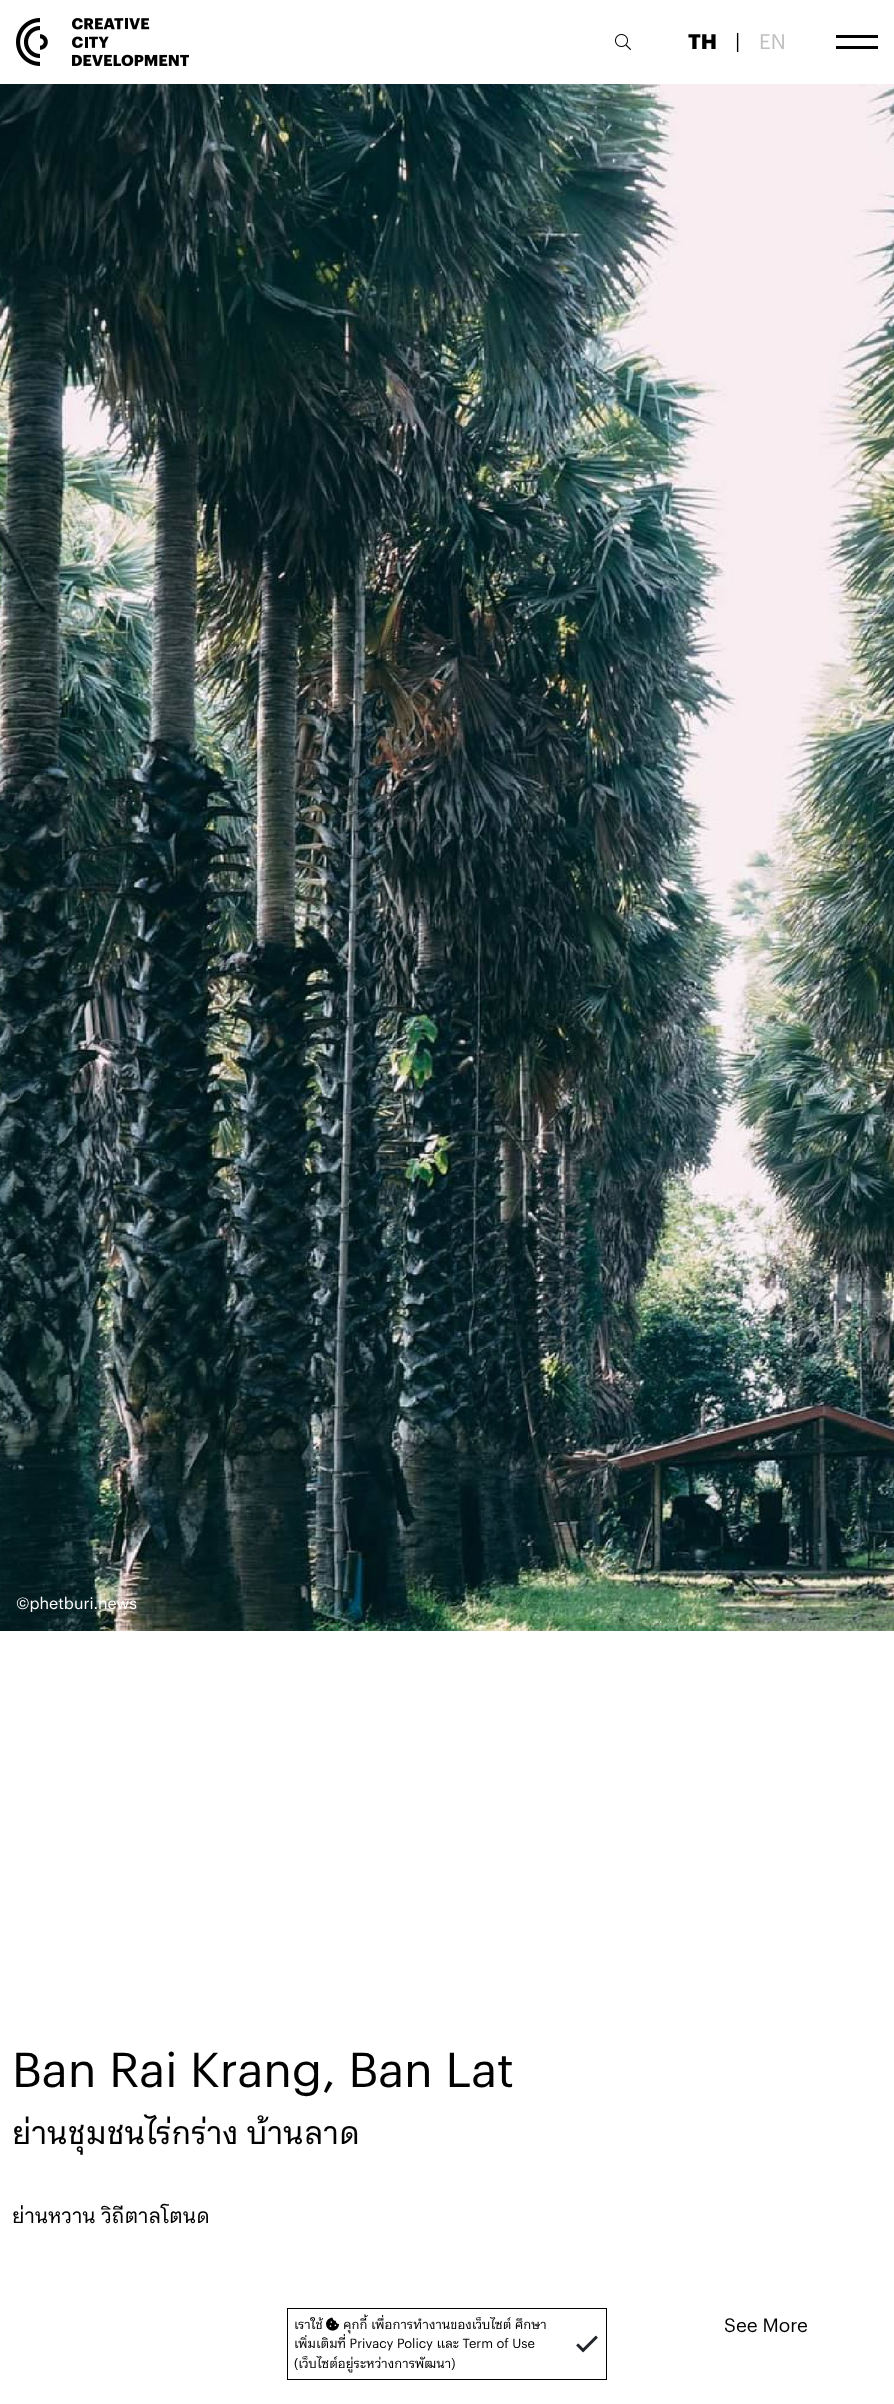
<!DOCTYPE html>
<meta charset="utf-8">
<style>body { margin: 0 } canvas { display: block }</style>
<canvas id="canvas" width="894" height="2404"></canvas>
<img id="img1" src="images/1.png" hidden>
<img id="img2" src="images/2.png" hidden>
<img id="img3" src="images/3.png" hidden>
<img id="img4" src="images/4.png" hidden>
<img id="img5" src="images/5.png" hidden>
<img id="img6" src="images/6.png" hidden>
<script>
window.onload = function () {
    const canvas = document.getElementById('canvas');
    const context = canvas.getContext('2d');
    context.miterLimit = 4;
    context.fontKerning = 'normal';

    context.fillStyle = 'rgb(255, 255, 255)';
    context.fillRect(0, 0, 894, 2404);
    context.drawImage(document.getElementById('img1'), 16, 18, 32, 48);
    context.drawImage(document.getElementById('img2'), 72, 18, 117, 48);
    context.drawImage(document.getElementById('img3'), 615, 34, 16, 16);
    context.fillStyle = 'rgb(0, 0, 0)';
    context.fillRect(836, 35, 42, 3);
    context.fillRect(836, 46, 42, 3);
    context.drawImage(document.getElementById('img4'), 0, 84, 894, 1547);
    context.strokeStyle = 'rgb(0, 0, 0)';
    context.strokeRect(287.5, 2308.5, 319, 71);
    context.drawImage(document.getElementById('img5'), 326, 2317, 13, 14);
    context.drawImage(document.getElementById('img6'), 576, 2335, 22, 18);
    context.font = 'bold 20.75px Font';
    context.fillText('TH', 688, 49);
    context.font = '20.75px Font';
    context.fillText('|', 735, 49);
    context.fillStyle = 'rgb(191, 191, 191)';
    context.fillText('EN', 759, 49);
    context.font = '16px Font';
    context.fillStyle = 'rgb(255, 255, 255)';
    context.fillText('©phetburi.news', 16, 1609);
    context.font = '48px Font';
    context.fillStyle = 'rgb(0, 0, 0)';
    context.fillText('Ban Rai Krang, Ban Lat', 12, 2087);
    context.font = '32px Font';
    context.fillText('ย่านชุมชนไร่กร่าง บ้านลาด', 12, 2144);
    context.font = '20.75px Font';
    context.fillText('ย่านหวาน วิถีตาลโตนด', 12, 2223);
    context.font = '19px Font';
    context.fillText('See More', 724, 2332);
    context.font = '13px Font';
    context.fillText('เราใช้', 294, 2329);
    context.fillText('คุกกี้ เพื่อการทำงานของเว็บไซต์ ศึกษา', 343, 2329);
    context.fillText('เพิ่มเติมที่ Privacy Policy และ Term of Use', 294, 2348);
    context.fillText('(เว็บไซต์อยู่ระหว่างการพัฒนา)', 294, 2368);
};
</script>
